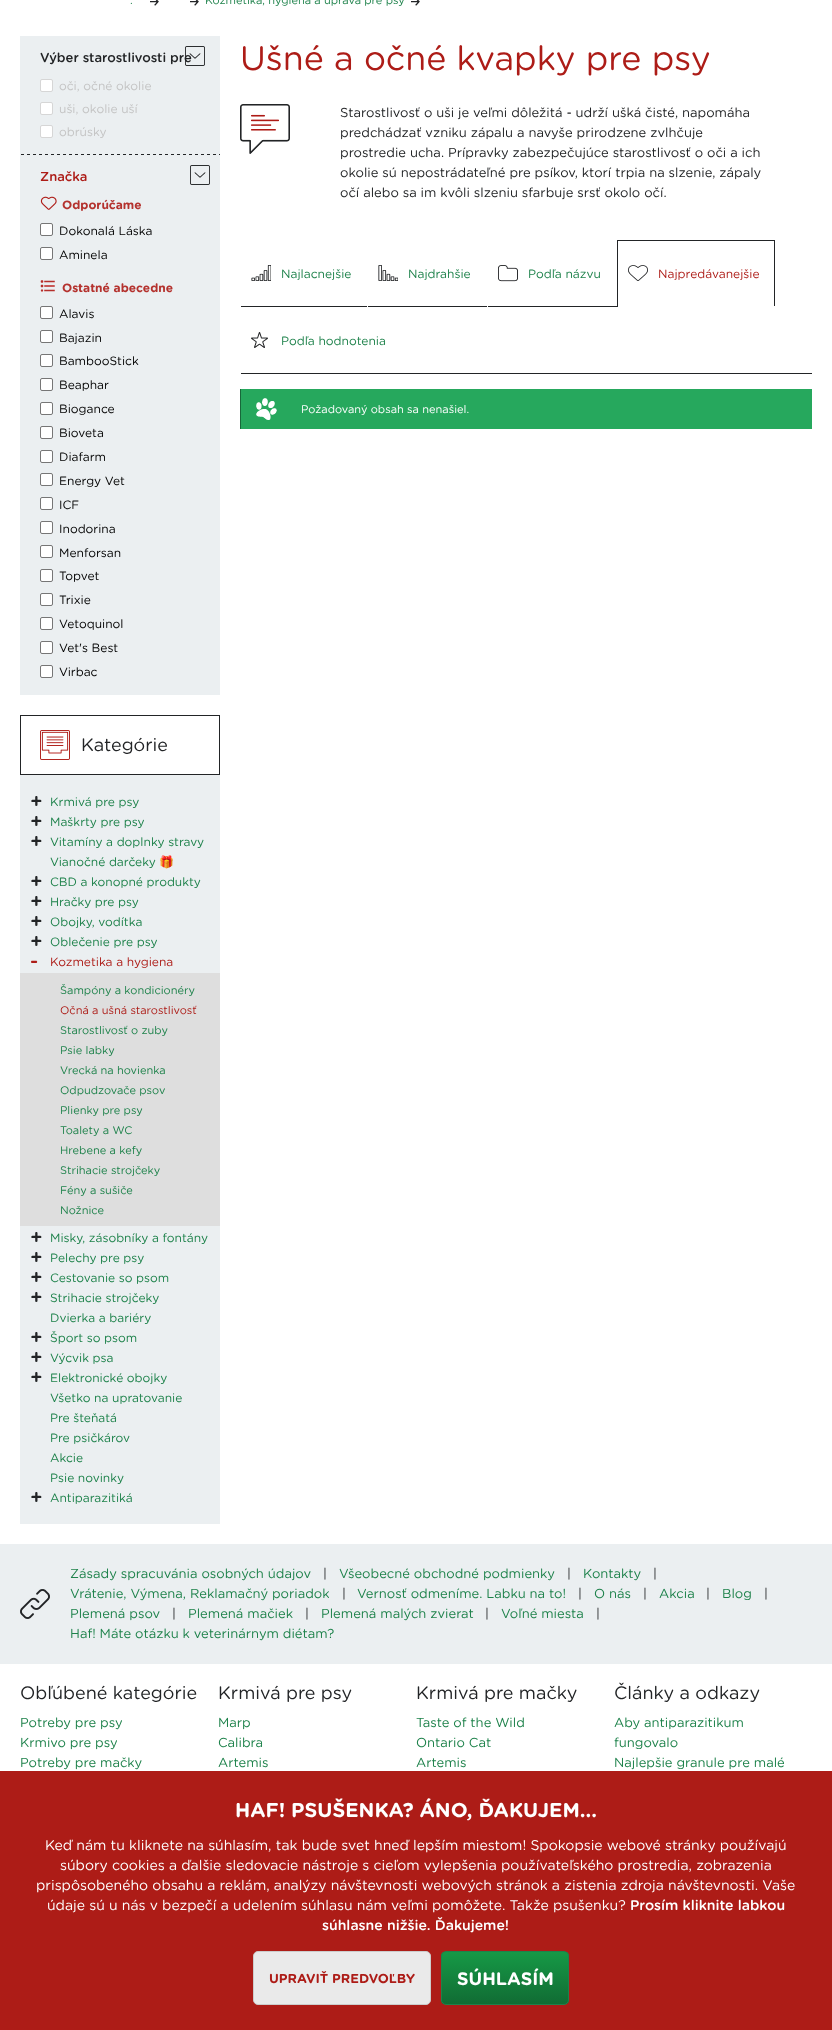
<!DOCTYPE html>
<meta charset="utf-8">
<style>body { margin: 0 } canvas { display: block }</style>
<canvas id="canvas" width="832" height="2030"></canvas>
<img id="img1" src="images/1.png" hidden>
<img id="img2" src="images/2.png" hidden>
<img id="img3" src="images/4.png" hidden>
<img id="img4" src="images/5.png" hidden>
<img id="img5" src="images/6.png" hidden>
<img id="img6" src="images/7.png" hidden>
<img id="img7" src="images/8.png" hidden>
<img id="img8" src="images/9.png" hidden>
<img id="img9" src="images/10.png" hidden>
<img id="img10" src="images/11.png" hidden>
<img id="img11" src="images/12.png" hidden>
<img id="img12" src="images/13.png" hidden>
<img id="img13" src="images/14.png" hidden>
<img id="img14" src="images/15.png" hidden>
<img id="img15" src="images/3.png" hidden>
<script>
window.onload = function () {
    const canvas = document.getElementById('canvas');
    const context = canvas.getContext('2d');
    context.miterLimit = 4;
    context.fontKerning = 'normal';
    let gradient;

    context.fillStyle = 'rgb(255, 255, 255)';
    context.fillRect(0, 0, 832, 2030);
    context.drawImage(document.getElementById('img1'), 150, 0, 9, 6);
    context.drawImage(document.getElementById('img1'), 190, 0, 9, 6);
    context.drawImage(document.getElementById('img1'), 411, 0, 9, 6);
    context.fillStyle = 'rgb(235, 239, 241)';
    context.fillRect(20, 36, 200, 659);
    context.drawImage(document.getElementById('img2'), 21, 154, 199, 1);
    context.fillStyle = 'rgb(255, 255, 255)';
    context.beginPath();
    context.roundRect(40.5, 79.5, 12, 12, 1.5);
    context.fill();
    context.strokeStyle = 'rgb(214, 214, 214)';
    context.stroke();
    context.beginPath();
    context.roundRect(40.5, 102.5, 12, 12, 1.5);
    context.fill();
    context.stroke();
    context.beginPath();
    context.roundRect(40.5, 125.5, 12, 12, 1.5);
    context.fill();
    context.stroke();
    context.drawImage(document.getElementById('img3'), 190, 165, 20, 20);
    context.drawImage(document.getElementById('img4'), 40, 196, 17, 14);
    context.beginPath();
    context.roundRect(40.5, 223.5, 12, 12, 1.5);
    context.fill();
    context.strokeStyle = 'rgb(118, 118, 118)';
    context.stroke();
    context.beginPath();
    context.roundRect(40.5, 247.5, 12, 12, 1.5);
    context.fill();
    context.stroke();
    context.drawImage(document.getElementById('img5'), 40, 280, 15, 12);
    context.beginPath();
    context.roundRect(40.5, 306.5, 12, 12, 1.5);
    context.fill();
    context.stroke();
    context.beginPath();
    context.roundRect(40.5, 330.5, 12, 12, 1.5);
    context.fill();
    context.stroke();
    context.beginPath();
    context.roundRect(40.5, 354.5, 12, 12, 1.5);
    context.fill();
    context.stroke();
    context.beginPath();
    context.roundRect(40.5, 378.5, 12, 12, 1.5);
    context.fill();
    context.stroke();
    context.beginPath();
    context.roundRect(40.5, 402.5, 12, 12, 1.5);
    context.fill();
    context.stroke();
    context.beginPath();
    context.roundRect(40.5, 426.5, 12, 12, 1.5);
    context.fill();
    context.stroke();
    context.beginPath();
    context.roundRect(40.5, 450.5, 12, 12, 1.5);
    context.fill();
    context.stroke();
    context.beginPath();
    context.roundRect(40.5, 473.5, 12, 12, 1.5);
    context.fill();
    context.stroke();
    context.beginPath();
    context.roundRect(40.5, 497.5, 12, 12, 1.5);
    context.fill();
    context.stroke();
    context.beginPath();
    context.roundRect(40.5, 521.5, 12, 12, 1.5);
    context.fill();
    context.stroke();
    context.beginPath();
    context.roundRect(40.5, 545.5, 12, 12, 1.5);
    context.fill();
    context.stroke();
    context.beginPath();
    context.roundRect(40.5, 569.5, 12, 12, 1.5);
    context.fill();
    context.stroke();
    context.beginPath();
    context.roundRect(40.5, 593.5, 12, 12, 1.5);
    context.fill();
    context.stroke();
    context.beginPath();
    context.roundRect(40.5, 617.5, 12, 12, 1.5);
    context.fill();
    context.stroke();
    context.beginPath();
    context.roundRect(40.5, 641.5, 12, 12, 1.5);
    context.fill();
    context.stroke();
    context.beginPath();
    context.roundRect(40.5, 665.5, 12, 12, 1.5);
    context.fill();
    context.stroke();
    context.strokeStyle = 'rgb(34, 36, 38)';
    context.strokeRect(20.5, 715.5, 199, 59);
    context.drawImage(document.getElementById('img6'), 40, 730, 30, 30);
    context.fillStyle = 'rgb(235, 239, 241)';
    context.fillRect(20, 775, 200, 749);
    context.fillStyle = 'rgb(222, 222, 222)';
    context.fillRect(20, 973, 200, 253);
    context.drawImage(document.getElementById('img7'), 240, 104, 50, 50);
    context.fillStyle = 'rgb(34, 36, 38)';
    context.fillRect(240, 373, 572, 1);
    context.fillRect(240, 306, 377, 1);
    context.fillStyle = 'rgb(255, 255, 255)';
    context.fillRect(240, 306, 1, 1);
    context.drawImage(document.getElementById('img8'), 251, 265, 20, 16);
    context.fillRect(367, 306, 1, 1);
    context.drawImage(document.getElementById('img9'), 378, 265, 20, 16);
    context.fillRect(487, 306, 1, 1);
    context.drawImage(document.getElementById('img10'), 498, 265, 20, 17);
    context.fillStyle = 'rgb(34, 36, 38)';
    context.fillRect(617, 240, 158, 1);
    context.fillRect(774, 240, 1, 67);
    context.fillStyle = 'rgb(255, 255, 255)';
    context.fillRect(774, 306, 1, 1);
    context.fillStyle = 'rgb(34, 36, 38)';
    context.fillRect(617, 240, 1, 67);
    context.drawImage(document.getElementById('img11'), 628, 265, 20, 16);
    context.fillStyle = 'rgb(255, 255, 255)';
    context.fillRect(240, 373, 1, 1);
    context.drawImage(document.getElementById('img12'), 251, 332, 17, 16);
    context.fillStyle = 'rgb(38, 168, 93)';
    context.fillRect(241, 389, 571, 40);
    context.fillStyle = 'rgb(24, 104, 58)';
    context.fillRect(240, 389, 1, 40);
    context.drawImage(document.getElementById('img13'), 256, 398, 21, 22);
    context.fillStyle = 'rgb(235, 239, 241)';
    context.fillRect(0, 1544, 832, 120);
    context.drawImage(document.getElementById('img14'), 20, 1589, 30, 30);
    context.fillStyle = 'rgb(173, 28, 23)';
    context.fillRect(0, 1771, 832, 259);
    context.fillStyle = 'rgb(234, 234, 234)';
    context.beginPath();
    context.roundRect(253.5, 1951.5, 177, 53, 4.5);
    context.fill();
    context.strokeStyle = 'rgb(204, 204, 204)';
    context.stroke();
    context.save();
    context.beginPath();
    context.roundRect(441, 1951, 128, 54, 5);
    context.clip();
    gradient = context.createLinearGradient(505, 1952, 505, 2004);
    gradient.addColorStop(0, 'rgb(22, 153, 70)');
    gradient.addColorStop(1, 'rgb(17, 108, 52)');
    context.fillStyle = gradient;
    context.fillRect(441, 1952, 128, 52);
    context.restore();
    context.beginPath();
    context.roundRect(441.5, 1951.5, 127, 53, 4.5);
    context.strokeStyle = 'rgb(30, 130, 75)';
    context.stroke();
    context.font = '11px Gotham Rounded';
    context.fillStyle = 'rgb(30, 130, 75)';
    context.fillText('.', 130, 4);
    context.fillText('Kozmetika, hygiena a úprava pre psy', 205, 4);
    context.font = '500 13px Gotham Rounded';
    context.fillStyle = 'rgb(34, 36, 38)';
    context.fillText('Výber starostlivosti pre', 40, 62);
    context.drawImage(document.getElementById('img15'), 185, 46, 20, 20);
    context.font = '12px Gotham Rounded';
    context.fillStyle = 'rgb(196, 196, 196)';
    context.fillText('oči, očné okolie', 59, 90);
    context.fillText('uši, okolie uší', 59, 113);
    context.fillText('obrúsky', 59, 136);
    context.font = '500 13px Gotham Rounded';
    context.fillStyle = 'rgb(173, 28, 23)';
    context.fillText('Značka', 40, 181);
    context.font = 'bold 12px Gotham Rounded';
    context.fillStyle = 'rgb(180, 50, 46)';
    context.fillText('Odporúčame', 62, 209);
    context.font = '12px Gotham Rounded';
    context.fillStyle = 'rgb(0, 0, 0)';
    context.fillText('Dokonalá Láska', 59, 235);
    context.fillText('Aminela', 59, 259);
    context.font = 'bold 12px Gotham Rounded';
    context.fillStyle = 'rgb(180, 50, 46)';
    context.fillText('Ostatné abecedne', 62, 292);
    context.font = '12px Gotham Rounded';
    context.fillStyle = 'rgb(0, 0, 0)';
    context.fillText('Alavis', 59, 318);
    context.fillText('Bajazin', 59, 342);
    context.fillText('BambooStick', 59, 365);
    context.fillText('Beaphar', 59, 389);
    context.fillText('Biogance', 59, 413);
    context.fillText('Bioveta', 59, 437);
    context.fillText('Diafarm', 59, 461);
    context.fillText('Energy Vet', 59, 485);
    context.fillText('ICF', 59, 509);
    context.fillText('Inodorina', 59, 533);
    context.fillText('Menforsan', 59, 557);
    context.fillText('Topvet', 59, 580);
    context.fillText('Trixie', 59, 604);
    context.fillText('Vetoquinol', 59, 628);
    context.fillText('Vet\'s Best', 59, 652);
    context.fillText('Virbac', 59, 676);
    context.font = '18px Gotham Rounded';
    context.fillStyle = 'rgb(34, 36, 38)';
    context.fillText('Kategórie', 81, 751);
    context.font = '500 20px Gotham Rounded';
    context.fillText('+', 30, 808);
    context.font = '12px Gotham Rounded';
    context.fillStyle = 'rgb(30, 130, 75)';
    context.fillText('Krmivá pre psy', 50, 806);
    context.font = '500 20px Gotham Rounded';
    context.fillStyle = 'rgb(34, 36, 38)';
    context.fillText('+', 30, 828);
    context.font = '12px Gotham Rounded';
    context.fillStyle = 'rgb(30, 130, 75)';
    context.fillText('Maškrty pre psy', 50, 826);
    context.font = '500 20px Gotham Rounded';
    context.fillStyle = 'rgb(34, 36, 38)';
    context.fillText('+', 30, 848);
    context.font = '12px Gotham Rounded';
    context.fillStyle = 'rgb(30, 130, 75)';
    context.fillText('Vitamíny a doplnky stravy', 50, 846);
    context.fillText('Vianočné darčeky', 50, 866);
    context.font = '12px Noto Color Emoji';
    context.fillText('🎁', 159, 866);
    context.font = '500 20px Gotham Rounded';
    context.fillStyle = 'rgb(34, 36, 38)';
    context.fillText('+', 30, 888);
    context.font = '12px Gotham Rounded';
    context.fillStyle = 'rgb(30, 130, 75)';
    context.fillText('CBD a konopné produkty', 50, 886);
    context.font = '500 20px Gotham Rounded';
    context.fillStyle = 'rgb(34, 36, 38)';
    context.fillText('+', 30, 908);
    context.font = '12px Gotham Rounded';
    context.fillStyle = 'rgb(30, 130, 75)';
    context.fillText('Hračky pre psy', 50, 906);
    context.font = '500 20px Gotham Rounded';
    context.fillStyle = 'rgb(34, 36, 38)';
    context.fillText('+', 30, 928);
    context.font = '12px Gotham Rounded';
    context.fillStyle = 'rgb(30, 130, 75)';
    context.fillText('Obojky, vodítka', 50, 926);
    context.font = '500 20px Gotham Rounded';
    context.fillStyle = 'rgb(34, 36, 38)';
    context.fillText('+', 30, 948);
    context.font = '12px Gotham Rounded';
    context.fillStyle = 'rgb(30, 130, 75)';
    context.fillText('Oblečenie pre psy', 50, 946);
    context.font = '500 20px Gotham Rounded';
    context.fillStyle = 'rgb(173, 28, 23)';
    context.fillText('-', 30, 968);
    context.font = '12px Gotham Rounded';
    context.fillText('Kozmetika a hygiena', 50, 966);
    context.font = '11px Gotham Rounded';
    context.fillStyle = 'rgb(30, 130, 75)';
    context.fillText('Šampóny a kondicionéry', 60, 994);
    context.fillStyle = 'rgb(173, 28, 23)';
    context.fillText('Očná a ušná starostlivosť', 60, 1014);
    context.fillStyle = 'rgb(30, 130, 75)';
    context.fillText('Starostlivosť o zuby', 60, 1034);
    context.fillText('Psie labky', 60, 1054);
    context.fillText('Vrecká na hovienka', 60, 1074);
    context.fillText('Odpudzovače psov', 60, 1094);
    context.fillText('Plienky pre psy', 60, 1114);
    context.fillText('Toalety a WC', 60, 1134);
    context.fillText('Hrebene a kefy', 60, 1154);
    context.fillText('Strihacie strojčeky', 60, 1174);
    context.fillText('Fény a sušiče', 60, 1194);
    context.fillText('Nožnice', 60, 1214);
    context.font = '500 20px Gotham Rounded';
    context.fillStyle = 'rgb(34, 36, 38)';
    context.fillText('+', 30, 1244);
    context.font = '12px Gotham Rounded';
    context.fillStyle = 'rgb(30, 130, 75)';
    context.fillText('Misky, zásobníky a fontány', 50, 1242);
    context.font = '500 20px Gotham Rounded';
    context.fillStyle = 'rgb(34, 36, 38)';
    context.fillText('+', 30, 1264);
    context.font = '12px Gotham Rounded';
    context.fillStyle = 'rgb(30, 130, 75)';
    context.fillText('Pelechy pre psy', 50, 1262);
    context.font = '500 20px Gotham Rounded';
    context.fillStyle = 'rgb(34, 36, 38)';
    context.fillText('+', 30, 1284);
    context.font = '12px Gotham Rounded';
    context.fillStyle = 'rgb(30, 130, 75)';
    context.fillText('Cestovanie so psom', 50, 1282);
    context.font = '500 20px Gotham Rounded';
    context.fillStyle = 'rgb(34, 36, 38)';
    context.fillText('+', 30, 1304);
    context.font = '12px Gotham Rounded';
    context.fillStyle = 'rgb(30, 130, 75)';
    context.fillText('Strihacie strojčeky', 50, 1302);
    context.fillText('Dvierka a bariéry', 50, 1322);
    context.font = '500 20px Gotham Rounded';
    context.fillStyle = 'rgb(34, 36, 38)';
    context.fillText('+', 30, 1344);
    context.font = '12px Gotham Rounded';
    context.fillStyle = 'rgb(30, 130, 75)';
    context.fillText('Šport so psom', 50, 1342);
    context.font = '500 20px Gotham Rounded';
    context.fillStyle = 'rgb(34, 36, 38)';
    context.fillText('+', 30, 1364);
    context.font = '12px Gotham Rounded';
    context.fillStyle = 'rgb(30, 130, 75)';
    context.fillText('Výcvik psa', 50, 1362);
    context.font = '500 20px Gotham Rounded';
    context.fillStyle = 'rgb(34, 36, 38)';
    context.fillText('+', 30, 1384);
    context.font = '12px Gotham Rounded';
    context.fillStyle = 'rgb(30, 130, 75)';
    context.fillText('Elektronické obojky', 50, 1382);
    context.fillText('Všetko na upratovanie', 50, 1402);
    context.fillText('Pre šteňatá', 50, 1422);
    context.fillText('Pre psičkárov', 50, 1442);
    context.fillText('Akcie', 50, 1462);
    context.fillText('Psie novinky', 50, 1482);
    context.font = '500 20px Gotham Rounded';
    context.fillStyle = 'rgb(34, 36, 38)';
    context.fillText('+', 30, 1504);
    context.font = '12px Gotham Rounded';
    context.fillStyle = 'rgb(30, 130, 75)';
    context.fillText('Antiparazitiká', 50, 1502);
    context.font = '34px Gotham Rounded';
    context.fillStyle = 'rgb(173, 28, 23)';
    context.fillText('Ušné a očné kvapky pre psy', 240, 70);
    context.font = '13px Gotham Rounded';
    context.fillStyle = 'rgb(34, 36, 38)';
    context.fillText('Starostlivosť o uši je veľmi dôležitá - udrží ušká čisté, napomáha', 340, 117);
    context.fillText('predchádzať vzniku zápalu a navyše prirodzene zvlhčuje', 340, 137);
    context.fillText('prostredie ucha. Prípravky zabezpečujúce starostlivosť o oči a ich', 340, 157);
    context.fillText('okolie sú nepostrádateľné pre psíkov, ktorí trpia na slzenie, zápaly', 340, 177);
    context.fillText('očí alebo sa im kvôli slzeniu sfarbuje srsť okolo očí.', 340, 197);
    context.font = '12px Gotham Rounded';
    context.fillStyle = 'rgb(30, 130, 75)';
    context.fillText('Najlacnejšie', 281, 278);
    context.fillText('Najdrahšie', 408, 278);
    context.fillText('Podľa názvu', 528, 278);
    context.fillStyle = 'rgb(173, 28, 23)';
    context.fillText('Najpredávanejšie', 658, 278);
    context.fillStyle = 'rgb(30, 130, 75)';
    context.fillText('Podľa hodnotenia', 281, 345);
    context.font = '11px Gotham Rounded';
    context.fillStyle = 'rgb(255, 255, 255)';
    context.fillText('Požadovaný obsah sa nenašiel.', 301, 413);
    context.font = '13px Gotham Rounded';
    context.fillStyle = 'rgb(30, 130, 75)';
    context.fillText('Zásady spracuvánia osobných údajov', 70, 1578);
    context.fillStyle = 'rgb(34, 36, 38)';
    context.fillText('|', 323, 1578);
    context.fillStyle = 'rgb(30, 130, 75)';
    context.fillText('Všeobecné obchodné podmienky', 339, 1578);
    context.fillStyle = 'rgb(34, 36, 38)';
    context.fillText('|', 567, 1578);
    context.fillStyle = 'rgb(30, 130, 75)';
    context.fillText('Kontakty', 583, 1578);
    context.fillStyle = 'rgb(34, 36, 38)';
    context.fillText('|', 653, 1578);
    context.fillStyle = 'rgb(30, 130, 75)';
    context.fillText('Vrátenie, Výmena, Reklamačný poriadok', 70, 1598);
    context.fillStyle = 'rgb(34, 36, 38)';
    context.fillText('|', 342, 1598);
    context.fillStyle = 'rgb(30, 130, 75)';
    context.fillText('Vernosť odmeníme. Labku na to!', 357, 1598);
    context.fillStyle = 'rgb(34, 36, 38)';
    context.fillText('|', 578, 1598);
    context.fillStyle = 'rgb(30, 130, 75)';
    context.fillText('O nás', 594, 1598);
    context.fillStyle = 'rgb(34, 36, 38)';
    context.fillText('|', 643, 1598);
    context.fillStyle = 'rgb(30, 130, 75)';
    context.fillText('Akcia', 659, 1598);
    context.fillStyle = 'rgb(34, 36, 38)';
    context.fillText('|', 706, 1598);
    context.fillStyle = 'rgb(30, 130, 75)';
    context.fillText('Blog', 722, 1598);
    context.fillStyle = 'rgb(34, 36, 38)';
    context.fillText('|', 764, 1598);
    context.fillStyle = 'rgb(30, 130, 75)';
    context.fillText('Plemená psov', 70, 1618);
    context.fillStyle = 'rgb(34, 36, 38)';
    context.fillText('|', 172, 1618);
    context.fillStyle = 'rgb(30, 130, 75)';
    context.fillText('Plemená mačiek', 188, 1618);
    context.fillStyle = 'rgb(34, 36, 38)';
    context.fillText('|', 305, 1618);
    context.fillStyle = 'rgb(30, 130, 75)';
    context.fillText('Plemená malých zvierat', 321, 1618);
    context.fillStyle = 'rgb(34, 36, 38)';
    context.fillText('|', 485, 1618);
    context.fillStyle = 'rgb(30, 130, 75)';
    context.fillText('Voľné miesta', 501, 1618);
    context.fillStyle = 'rgb(34, 36, 38)';
    context.fillText('|', 596, 1618);
    context.fillStyle = 'rgb(30, 130, 75)';
    context.fillText('Haf! Máte otázku k veterinárnym diétam?', 70, 1638);
    context.font = '18px Gotham Rounded';
    context.fillStyle = 'rgb(34, 36, 38)';
    context.fillText('Obľúbené kategórie', 20, 1699);
    context.font = '13px Gotham Rounded';
    context.fillStyle = 'rgb(30, 130, 75)';
    context.fillText('Potreby pre psy', 20, 1727);
    context.fillText('Krmivo pre psy', 20, 1747);
    context.fillText('Potreby pre mačky', 20, 1767);
    context.font = '18px Gotham Rounded';
    context.fillStyle = 'rgb(34, 36, 38)';
    context.fillText('Krmivá pre psy', 218, 1699);
    context.font = '13px Gotham Rounded';
    context.fillStyle = 'rgb(30, 130, 75)';
    context.fillText('Marp', 218, 1727);
    context.fillText('Calibra', 218, 1747);
    context.fillText('Artemis', 218, 1767);
    context.font = '18px Gotham Rounded';
    context.fillStyle = 'rgb(34, 36, 38)';
    context.fillText('Krmivá pre mačky', 416, 1699);
    context.font = '13px Gotham Rounded';
    context.fillStyle = 'rgb(30, 130, 75)';
    context.fillText('Taste of the Wild', 416, 1727);
    context.fillText('Ontario Cat', 416, 1747);
    context.fillText('Artemis', 416, 1767);
    context.font = '18px Gotham Rounded';
    context.fillStyle = 'rgb(34, 36, 38)';
    context.fillText('Články a odkazy', 614, 1699);
    context.font = '13px Gotham Rounded';
    context.fillStyle = 'rgb(30, 130, 75)';
    context.fillText('Aby antiparazitikum', 614, 1727);
    context.fillText('fungovalo', 614, 1747);
    context.fillText('Najlepšie granule pre malé', 614, 1767);
    context.font = 'bold 20px Gotham Rounded';
    context.fillStyle = 'rgb(255, 255, 255)';
    context.fillText('HAF! PSUŠENKA? ÁNO, ĎAKUJEM...', 235, 1817);
    context.font = '14px Gotham Rounded';
    context.fillText('Keď nám tu kliknete na súhlasím, tak bude svet hneď lepším miestom! Spokopsie webové stránky používajú', 45, 1850);
    context.fillText('súbory cookies a ďalšie sledovacie nástroje s cieľom vylepšenia používateľského prostredia, zobrazenia', 60, 1870);
    context.fillText('prispôsobeného obsahu a reklám, analýzy návštevnosti webových stránok a zistenia zdroja návštevnosti. Vaše', 36, 1890);
    context.fillText('údaje sú u nás v bezpečí a udelením súhlasu nám veľmi pomôžete. Takže psušenku?', 47, 1910);
    context.font = '500 14px Gotham Rounded';
    context.fillText('Prosím kliknite labkou', 630, 1910);
    context.fillText('súhlasne nižšie. Ďakujeme!', 322, 1930);
    context.font = 'bold 13px Gotham Rounded';
    context.fillStyle = 'rgb(173, 28, 23)';
    context.fillText('UPRAVIŤ PREDVOĽBY', 269, 1983);
    context.font = 'bold 18px Gotham Rounded';
    context.fillStyle = 'rgb(255, 255, 255)';
    context.fillText('SÚHLASÍM', 457, 1985);
};
</script>
